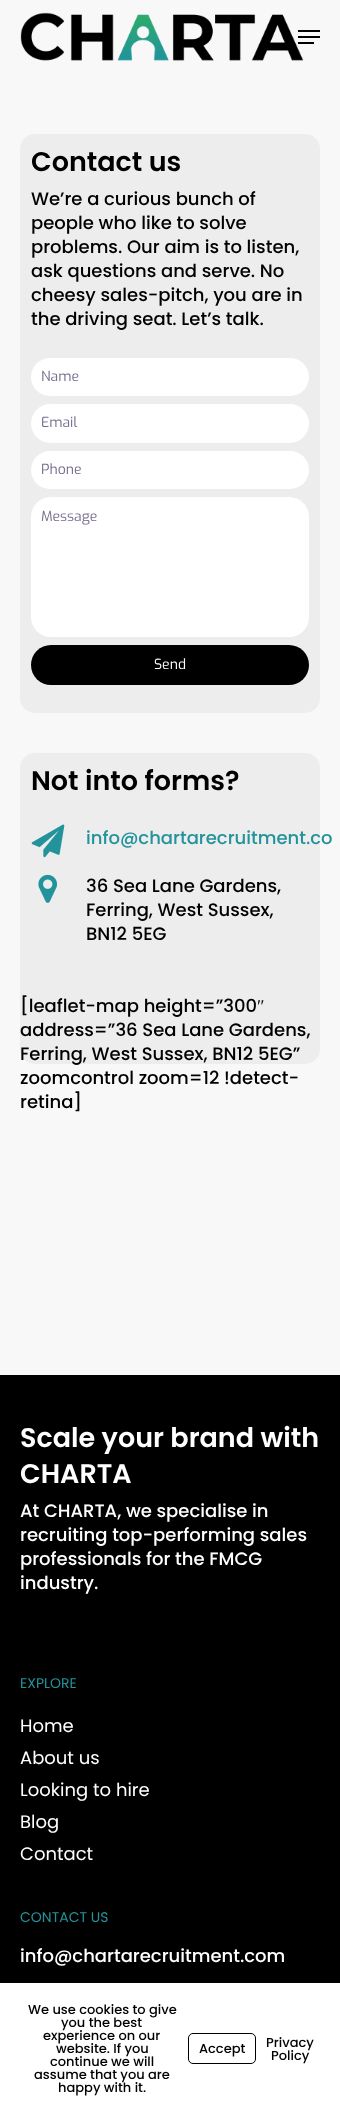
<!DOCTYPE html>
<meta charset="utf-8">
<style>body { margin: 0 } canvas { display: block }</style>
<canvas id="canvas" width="340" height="2114"></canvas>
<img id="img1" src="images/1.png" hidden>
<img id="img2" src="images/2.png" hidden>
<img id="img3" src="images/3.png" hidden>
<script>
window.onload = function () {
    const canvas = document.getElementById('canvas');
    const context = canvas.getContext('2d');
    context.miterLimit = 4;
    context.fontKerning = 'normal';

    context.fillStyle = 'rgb(248, 248, 248)';
    context.fillRect(0, 0, 340, 2114);
    context.drawImage(document.getElementById('img1'), 20, 12, 284, 49);
    context.fillStyle = 'rgb(0, 0, 0)';
    context.fillRect(298, 30, 22, 2);
    context.fillRect(298, 42, 16, 2);
    context.fillRect(298, 36, 22, 2);
    context.fillStyle = 'rgb(237, 237, 237)';
    context.beginPath();
    context.roundRect(20, 134, 300, 579, 15);
    context.fill();
    context.fillStyle = 'rgb(255, 255, 255)';
    context.beginPath();
    context.roundRect(31, 358, 278, 38, 19);
    context.fill();
    context.beginPath();
    context.roundRect(31, 404, 278, 39, 19.5);
    context.fill();
    context.beginPath();
    context.roundRect(31, 451, 278, 38, 19);
    context.fill();
    context.beginPath();
    context.roundRect(31, 497, 278, 140, 20);
    context.fill();
    context.fillStyle = 'rgb(0, 0, 0)';
    context.beginPath();
    context.roundRect(31, 645, 278, 40, 20);
    context.fill();
    context.fillStyle = 'rgb(237, 237, 237)';
    context.beginPath();
    context.roundRect(20, 753, 300, 311, 15);
    context.fill();
    context.drawImage(document.getElementById('img2'), 31, 824, 34, 34);
    context.drawImage(document.getElementById('img3'), 38, 874, 20, 29);
    context.fillStyle = 'rgb(0, 0, 0)';
    context.fillRect(0, 1375, 340, 608);
    context.fillStyle = 'rgb(255, 255, 255)';
    context.fillRect(0, 1983, 340, 131);
    context.beginPath();
    context.roundRect(188.5, 2033.5, 67, 30, 4.5);
    context.strokeStyle = 'rgb(0, 0, 0)';
    context.stroke();
    context.font = '600 27px Poppins';
    context.fillStyle = 'rgb(0, 0, 0)';
    context.fillText('Contact us', 31, 171);
    context.font = '500 18px Poppins';
    context.fillText('We’re a curious bunch of', 31, 205);
    context.fillText('people who like to solve', 31, 229);
    context.fillText('problems. Our aim is to listen,', 31, 253);
    context.fillText('ask questions and serve. No', 31, 277);
    context.fillText('cheesy sales-pitch, you are in', 31, 301);
    context.fillText('the driving seat. Let’s talk.', 31, 325);
    context.font = '14px Exo';
    context.fillStyle = 'rgb(119, 109, 142)';
    context.fillText('Name', 41, 381);
    context.fillText('Email', 41, 427);
    context.fillText('Phone', 41, 474);
    context.fillText('Message', 41, 521);
    context.fillStyle = 'rgb(255, 255, 255)';
    context.fillText('Send', 154, 669);
    context.font = '600 27px Poppins';
    context.fillStyle = 'rgb(0, 0, 0)';
    context.fillText('Not into forms?', 31, 790);
    context.font = '500 18px Poppins';
    context.fillStyle = 'rgb(35, 147, 155)';
    context.fillText('info@chartarecruitment.co', 86, 844);
    context.fillStyle = 'rgb(0, 0, 0)';
    context.fillText('36 Sea Lane Gardens,', 86, 892);
    context.fillText('Ferring, West Sussex,', 86, 916);
    context.fillText('BN12 5EG', 86, 940);
    context.fillText('[leaflet-map height=”300', 20, 1012);
    context.font = '18px Liberation Serif';
    context.fillText('″', 257, 1012);
    context.font = '500 18px Poppins';
    context.fillText('address=”36 Sea Lane Gardens,', 20, 1036);
    context.fillText('Ferring, West Sussex, BN12 5EG”', 20, 1060);
    context.fillText('zoomcontrol zoom=12 !detect-', 20, 1084);
    context.fillText('retina]', 20, 1108);
    context.font = '600 27px Poppins';
    context.fillStyle = 'rgb(255, 255, 255)';
    context.fillText('Scale your brand with', 20, 1447);
    context.fillText('CHARTA', 20, 1483);
    context.font = '500 18px Poppins';
    context.fillText('At CHARTA, we specialise in', 20, 1517);
    context.fillText('recruiting top-performing sales', 20, 1541);
    context.fillText('professionals for the FMCG', 20, 1565);
    context.fillText('industry.', 20, 1589);
    context.font = '14px Poppins';
    context.fillStyle = 'rgb(35, 147, 155)';
    context.fillText('EXPLORE', 20, 1688);
    context.font = '18px Poppins';
    context.fillStyle = 'rgb(255, 255, 255)';
    context.fillText('Home', 20, 1732);
    context.fillText('About us', 20, 1764);
    context.fillText('Looking to hire', 20, 1796);
    context.fillText('Blog', 20, 1828);
    context.fillText('Contact', 20, 1860);
    context.font = '14px Poppins';
    context.fillStyle = 'rgb(35, 147, 155)';
    context.fillText('CONTACT US', 20, 1922);
    context.font = '500 18px Poppins';
    context.fillStyle = 'rgb(255, 255, 255)';
    context.fillText('info@chartarecruitment.com', 20, 1962);
    context.font = '500 13px Poppins';
    context.fillStyle = 'rgb(0, 0, 0)';
    context.fillText('We use cookies to give', 28, 2014);
    context.fillText('you the best', 61, 2027);
    context.fillText('experience on our', 43, 2040);
    context.fillText('website. If you', 56, 2053);
    context.fillText('continue we will', 50, 2066);
    context.fillText('assume that you are', 34, 2079);
    context.fillText('happy with it.', 58, 2092);
    context.fillText('Accept', 199, 2053);
    context.fillText('Privacy', 266, 2047);
    context.fillText('Policy', 271, 2060);
};
</script>
